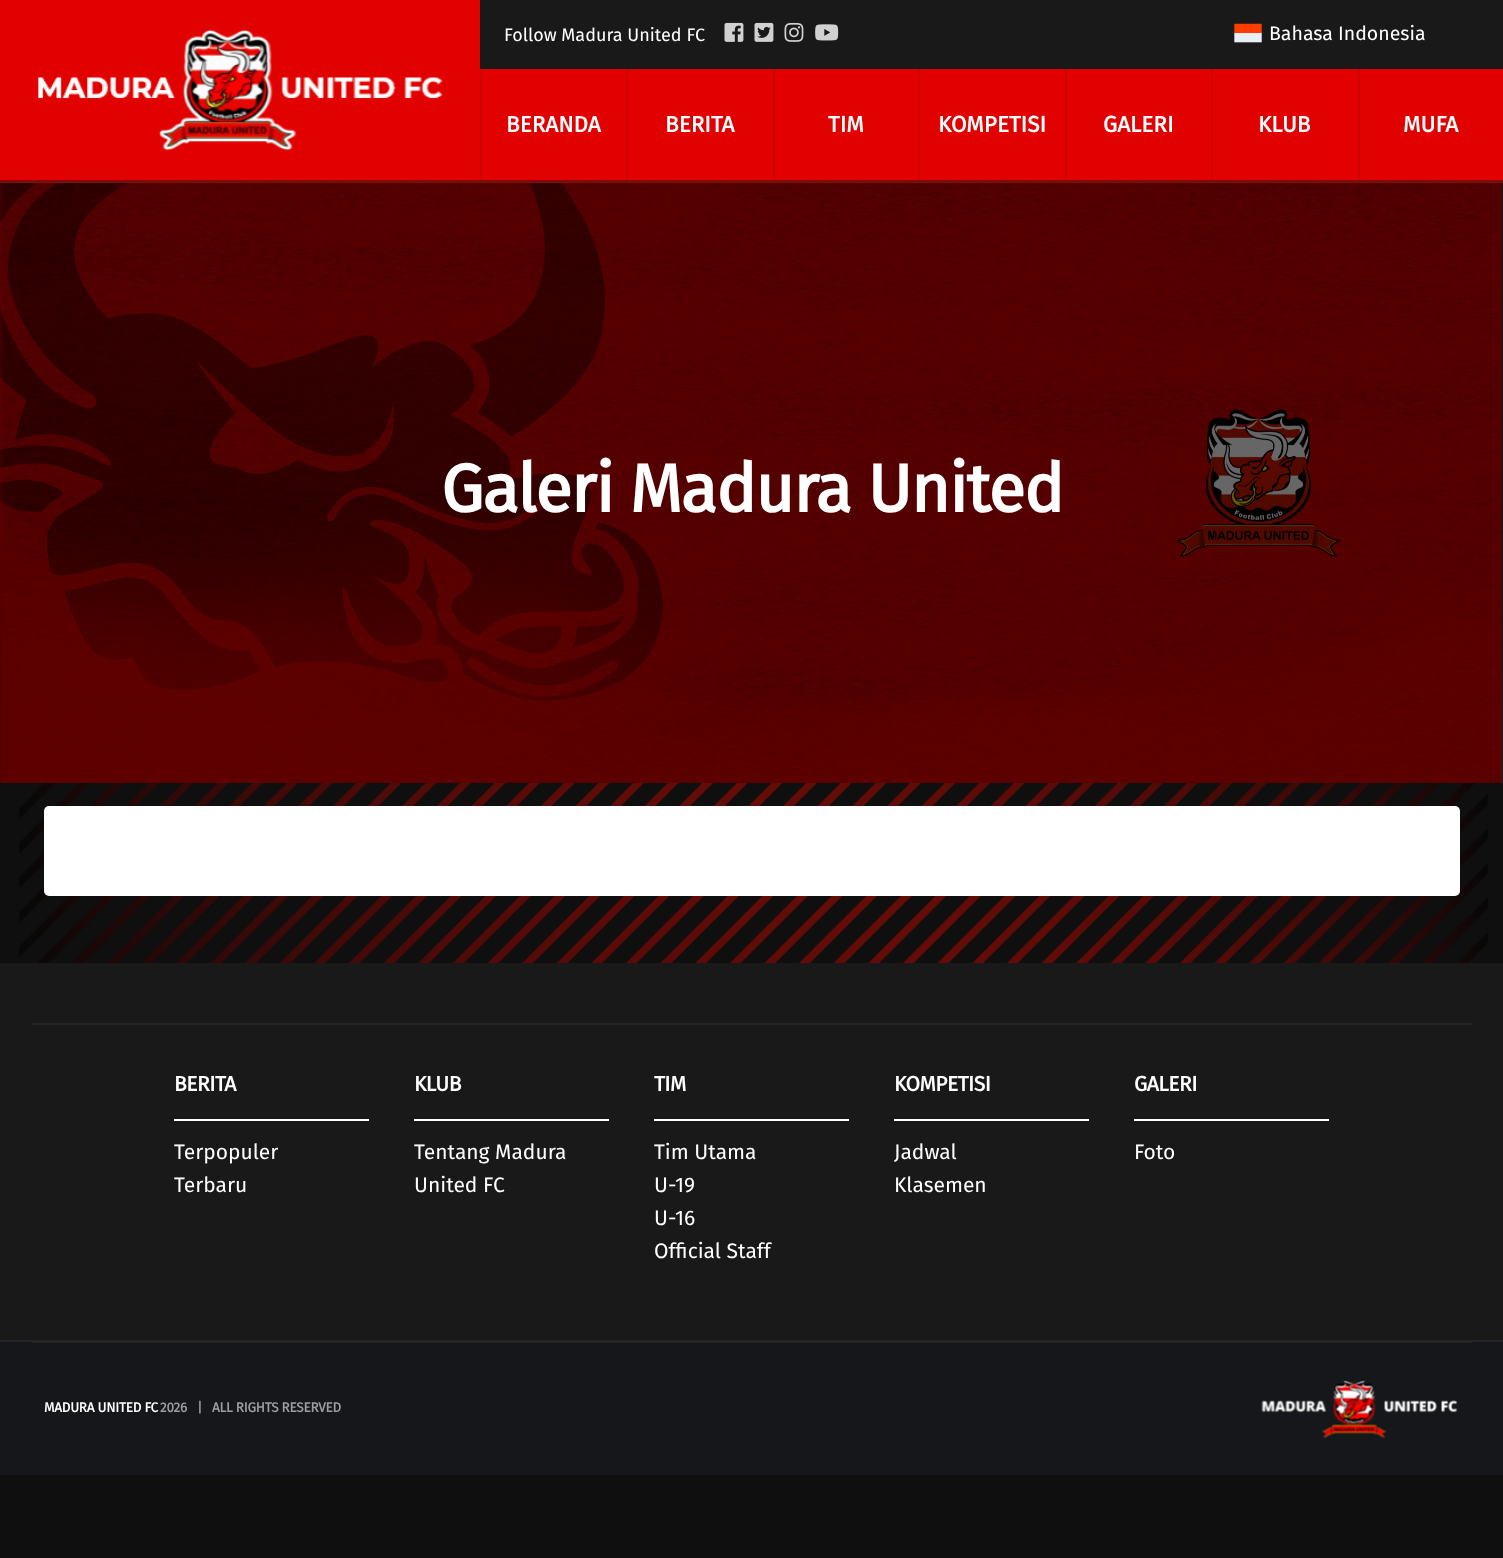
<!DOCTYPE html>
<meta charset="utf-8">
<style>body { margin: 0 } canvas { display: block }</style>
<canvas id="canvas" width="1503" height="1558"></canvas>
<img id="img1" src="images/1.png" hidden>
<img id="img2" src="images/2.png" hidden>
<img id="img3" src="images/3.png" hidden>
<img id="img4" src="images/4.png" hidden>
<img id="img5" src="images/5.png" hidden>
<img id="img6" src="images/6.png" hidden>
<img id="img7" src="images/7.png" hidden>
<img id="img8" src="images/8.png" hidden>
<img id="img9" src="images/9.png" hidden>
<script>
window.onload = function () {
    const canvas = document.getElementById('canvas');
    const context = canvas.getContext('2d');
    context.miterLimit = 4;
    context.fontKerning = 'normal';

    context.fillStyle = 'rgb(15, 15, 15)';
    context.fillRect(0, 0, 1503, 1558);
    context.drawImage(document.getElementById('img1'), 19, 782, 1469, 181);
    context.fillStyle = 'rgb(127, 12, 12)';
    context.fillRect(0, 180, 1503, 3);
    context.fillStyle = 'rgb(226, 1, 1)';
    context.fillRect(0, 0, 480, 180);
    context.drawImage(document.getElementById('img2'), 38, 29, 405, 122);
    context.fillStyle = 'rgb(25, 25, 25)';
    context.fillRect(480, 0, 1023, 69);
    context.drawImage(document.getElementById('img3'), 724, 22, 20, 20);
    context.drawImage(document.getElementById('img4'), 754, 22, 20, 20);
    context.drawImage(document.getElementById('img5'), 784, 22, 20, 20);
    context.drawImage(document.getElementById('img6'), 815, 24, 24, 17);
    context.drawImage(document.getElementById('img7'), 1234, 23, 28, 20);
    context.fillStyle = 'rgb(226, 1, 1)';
    context.fillRect(482, 69, 144, 111);
    context.fillStyle = 'rgb(206, 3, 3)';
    context.fillRect(480, 69, 2, 111);
    context.fillStyle = 'rgb(226, 1, 1)';
    context.fillRect(628, 69, 145, 111);
    context.fillStyle = 'rgb(206, 3, 3)';
    context.fillRect(626, 69, 2, 111);
    context.fillStyle = 'rgb(226, 1, 1)';
    context.fillRect(775, 69, 143, 111);
    context.fillStyle = 'rgb(206, 3, 3)';
    context.fillRect(773, 69, 2, 111);
    context.fillStyle = 'rgb(226, 1, 1)';
    context.fillRect(920, 69, 145, 111);
    context.fillStyle = 'rgb(206, 3, 3)';
    context.fillRect(918, 69, 2, 111);
    context.fillStyle = 'rgb(226, 1, 1)';
    context.fillRect(1067, 69, 144, 111);
    context.fillStyle = 'rgb(206, 3, 3)';
    context.fillRect(1065, 69, 2, 111);
    context.fillStyle = 'rgb(226, 1, 1)';
    context.fillRect(1213, 69, 145, 111);
    context.fillStyle = 'rgb(206, 3, 3)';
    context.fillRect(1211, 69, 2, 111);
    context.fillStyle = 'rgb(226, 1, 1)';
    context.fillRect(1360, 69, 143, 111);
    context.fillStyle = 'rgb(206, 3, 3)';
    context.fillRect(1358, 69, 2, 111);
    context.drawImage(document.getElementById('img8'), 0, 183, 1503, 600);
    context.fillStyle = 'rgba(0, 0, 0, 0.6)';
    context.fillRect(0, 183, 1503, 600);
    context.fillStyle = 'rgb(255, 255, 255)';
    context.beginPath();
    context.roundRect(44, 806, 1416, 90, 5);
    context.fill();
    context.fillStyle = 'rgb(25, 25, 25)';
    context.fillRect(0, 963, 1503, 377);
    context.fillStyle = 'rgb(37, 37, 37)';
    context.fillRect(32, 1023, 1440, 2);
    context.fillStyle = 'rgb(255, 255, 255)';
    context.fillRect(174, 1119, 195, 2);
    context.fillRect(414, 1119, 195, 2);
    context.fillRect(654, 1119, 195, 2);
    context.fillRect(894, 1119, 195, 2);
    context.fillRect(1134, 1119, 195, 2);
    context.fillStyle = 'rgb(22, 23, 26)';
    context.fillRect(0, 1342, 1503, 133);
    context.fillStyle = 'rgb(37, 37, 37)';
    context.fillRect(0, 1340, 1503, 2);
    context.fillRect(32, 1342, 1440, 1);
    context.drawImage(document.getElementById('img9'), 1261, 1379, 197, 60);
    context.font = '18px Fira Sans';
    context.fillStyle = 'rgb(255, 255, 255)';
    context.fillText('Follow Madura United FC', 504, 41);
    context.font = '19.5px Fira Sans';
    context.fillText('Bahasa Indonesia', 1269, 40);
    context.font = 'bold 22.5px Fira Sans';
    context.fillText('BERANDA', 506, 132);
    context.fillText('BERITA', 665, 132);
    context.fillText('TIM', 828, 132);
    context.fillText('KOMPETISI', 938, 132);
    context.fillText('GALERI', 1103, 132);
    context.fillText('KLUB', 1258, 132);
    context.fillText('MUFA', 1403, 132);
    context.letterSpacing = '-1.35px';
    context.font = 'bold 67.5px Fira Sans';
    context.fillText('Galeri Madura United', 441, 512);
    context.letterSpacing = '-0.5px';
    context.font = 'bold 21px Fira Sans';
    context.fillText('BERITA', 174, 1091);
    context.letterSpacing = '0px';
    context.font = '21px Fira Sans';
    context.fillText('Terpopuler', 174, 1159);
    context.fillText('Terbaru', 174, 1192);
    context.letterSpacing = '-0.5px';
    context.font = 'bold 21px Fira Sans';
    context.fillText('KLUB', 414, 1091);
    context.letterSpacing = '0px';
    context.font = '21px Fira Sans';
    context.fillText('Tentang Madura', 414, 1159);
    context.fillText('United FC', 414, 1192);
    context.letterSpacing = '-0.5px';
    context.font = 'bold 21px Fira Sans';
    context.fillText('TIM', 654, 1091);
    context.letterSpacing = '0px';
    context.font = '21px Fira Sans';
    context.fillText('Tim Utama', 654, 1159);
    context.fillText('U-19', 654, 1192);
    context.fillText('U-16', 654, 1225);
    context.fillText('Official Staff', 654, 1258);
    context.letterSpacing = '-0.5px';
    context.font = 'bold 21px Fira Sans';
    context.fillText('KOMPETISI', 894, 1091);
    context.letterSpacing = '0px';
    context.font = '21px Fira Sans';
    context.fillText('Jadwal', 894, 1159);
    context.fillText('Klasemen', 894, 1192);
    context.letterSpacing = '-0.5px';
    context.font = 'bold 21px Fira Sans';
    context.fillText('GALERI', 1134, 1091);
    context.letterSpacing = '0px';
    context.font = '21px Fira Sans';
    context.fillText('Foto', 1134, 1159);
    context.letterSpacing = '-0.25px';
    context.font = 'bold 13.5px Fira Sans';
    context.fillText('MADURA UNITED FC', 44, 1412);
    context.fillStyle = 'rgb(154, 157, 162)';
    context.fillText('2026   |   ALL RIGHTS RESERVED', 160, 1412);
};
</script>
